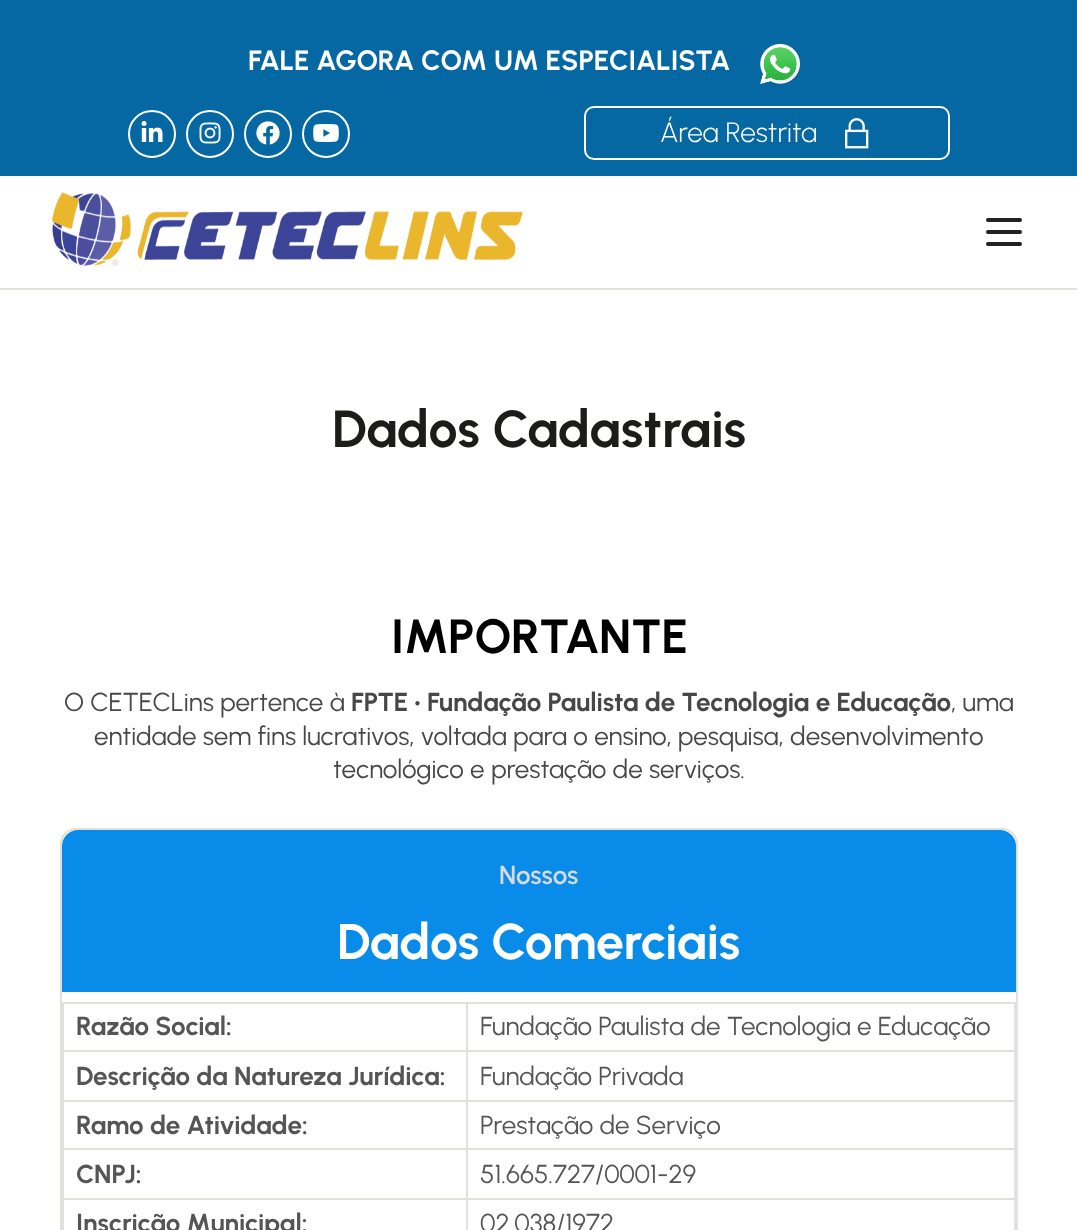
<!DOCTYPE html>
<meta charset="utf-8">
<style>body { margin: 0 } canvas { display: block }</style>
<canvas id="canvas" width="1077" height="1230"></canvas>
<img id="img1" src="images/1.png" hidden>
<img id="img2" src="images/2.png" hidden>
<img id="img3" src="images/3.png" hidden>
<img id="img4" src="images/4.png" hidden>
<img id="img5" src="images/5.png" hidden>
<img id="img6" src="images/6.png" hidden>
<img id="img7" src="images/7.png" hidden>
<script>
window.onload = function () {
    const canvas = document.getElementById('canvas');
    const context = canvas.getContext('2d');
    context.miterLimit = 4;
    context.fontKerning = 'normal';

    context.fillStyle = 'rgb(255, 255, 255)';
    context.fillRect(0, 0, 1077, 1230);
    context.fillStyle = 'rgb(5, 104, 163)';
    context.fillRect(0, 0, 1077, 176);
    context.drawImage(document.getElementById('img1'), 760, 44, 40, 40);
    context.beginPath();
    context.arc(152, 134, 23, 0, 2 * Math.PI);
    context.strokeStyle = 'rgb(255, 255, 255)';
    context.lineWidth = 2;
    context.stroke();
    context.drawImage(document.getElementById('img2'), 141, 121, 22, 21);
    context.beginPath();
    context.arc(210, 134, 23, 0, 2 * Math.PI);
    context.stroke();
    context.drawImage(document.getElementById('img3'), 199, 122, 22, 22);
    context.beginPath();
    context.arc(268, 134, 23, 0, 2 * Math.PI);
    context.stroke();
    context.drawImage(document.getElementById('img4'), 256, 121, 24, 24);
    context.beginPath();
    context.arc(326, 134, 23, 0, 2 * Math.PI);
    context.stroke();
    context.drawImage(document.getElementById('img5'), 313, 124, 26, 18);
    context.beginPath();
    context.roundRect(585, 107, 364, 52, 9);
    context.stroke();
    context.drawImage(document.getElementById('img6'), 845, 118, 24, 31);
    context.fillStyle = 'rgb(226, 224, 219)';
    context.fillRect(0, 288, 1077, 2);
    context.drawImage(document.getElementById('img7'), 52, 192, 471, 74);
    context.beginPath();
    context.moveTo(988, 220);
    context.lineTo(1020, 220);
    context.moveTo(988, 232);
    context.lineTo(1020, 232);
    context.moveTo(988, 244);
    context.lineTo(1020, 244);
    context.strokeStyle = 'rgb(34, 34, 34)';
    context.lineWidth = 4;
    context.lineCap = 'round';
    context.lineJoin = 'round';
    context.stroke();
    context.beginPath();
    context.roundRect(61, 829, 956, 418, 15);
    context.strokeStyle = 'rgb(226, 224, 219)';
    context.lineWidth = 2;
    context.lineJoin = 'miter';
    context.stroke();
    context.fillStyle = 'rgb(9, 140, 233)';
    context.beginPath();
    context.roundRect(62, 830, 954, 162, [16, 16, 0, 0]);
    context.fill();
    context.fillStyle = 'rgb(226, 224, 219)';
    context.fillRect(62, 1002, 954, 2);
    context.fillRect(1014, 1002, 2, 228);
    context.fillRect(62, 1002, 2, 228);
    context.fillRect(62, 1050, 954, 2);
    context.fillRect(62, 1100, 954, 2);
    context.fillRect(62, 1148, 954, 2);
    context.fillRect(62, 1198, 954, 2);
    context.fillRect(466, 1002, 2, 228);
    context.font = 'bold 28px Urbanist';
    context.fillStyle = 'rgb(255, 255, 255)';
    context.fillText('FALE AGORA COM UM ESPECIALISTA', 248, 70);
    context.font = '300 28px Urbanist';
    context.fillText('Área Restrita', 660, 142);
    context.font = 'bold 52px Urbanist';
    context.fillStyle = 'rgb(28, 28, 27)';
    context.fillText('Dados Cadastrais', 332, 447);
    context.font = 'bold 48px Urbanist';
    context.fillStyle = 'rgb(0, 0, 0)';
    context.fillText('IMPORTANTE', 391, 653);
    context.font = '26px Urbanist';
    context.fillStyle = 'rgb(71, 71, 71)';
    context.fillText('O CETECLins pertence à', 64, 711);
    context.font = 'bold 26px Urbanist';
    context.fillText('FPTE • Fundação Paulista de Tecnologia e Educação', 351, 711);
    context.font = '26px Urbanist';
    context.fillText(', uma', 951, 711);
    context.fillText('entidade sem fins lucrativos, voltada para o ensino, pesquisa, desenvolvimento', 94, 745);
    context.fillText('tecnológico e prestação de serviços.', 333, 778);
    context.font = '600 26px Urbanist';
    context.fillStyle = 'rgb(218, 218, 218)';
    context.fillText('Nossos', 499, 884);
    context.font = 'bold 50px Urbanist';
    context.fillStyle = 'rgb(255, 255, 255)';
    context.fillText('Dados Comerciais', 337, 959);
    context.font = 'bold 26px Urbanist';
    context.fillStyle = 'rgb(85, 85, 85)';
    context.fillText('Razão Social:', 76, 1035);
    context.font = '26px Urbanist';
    context.fillText('Fundação Paulista de Tecnologia e Educação', 480, 1035);
    context.font = 'bold 26px Urbanist';
    context.fillText('Descrição da Natureza Jurídica:', 76, 1085);
    context.font = '26px Urbanist';
    context.fillText('Fundação Privada', 480, 1085);
    context.font = 'bold 26px Urbanist';
    context.fillText('Ramo de Atividade:', 76, 1134);
    context.font = '26px Urbanist';
    context.fillText('Prestação de Serviço', 480, 1134);
    context.font = 'bold 26px Urbanist';
    context.fillText('CNPJ:', 76, 1183);
    context.font = '26px Urbanist';
    context.fillText('51.665.727/0001-29', 480, 1183);
    context.font = 'bold 26px Urbanist';
    context.fillText('Inscrição Municipal:', 76, 1232);
    context.font = '26px Urbanist';
    context.fillText('02.038/1972', 480, 1232);
};
</script>
